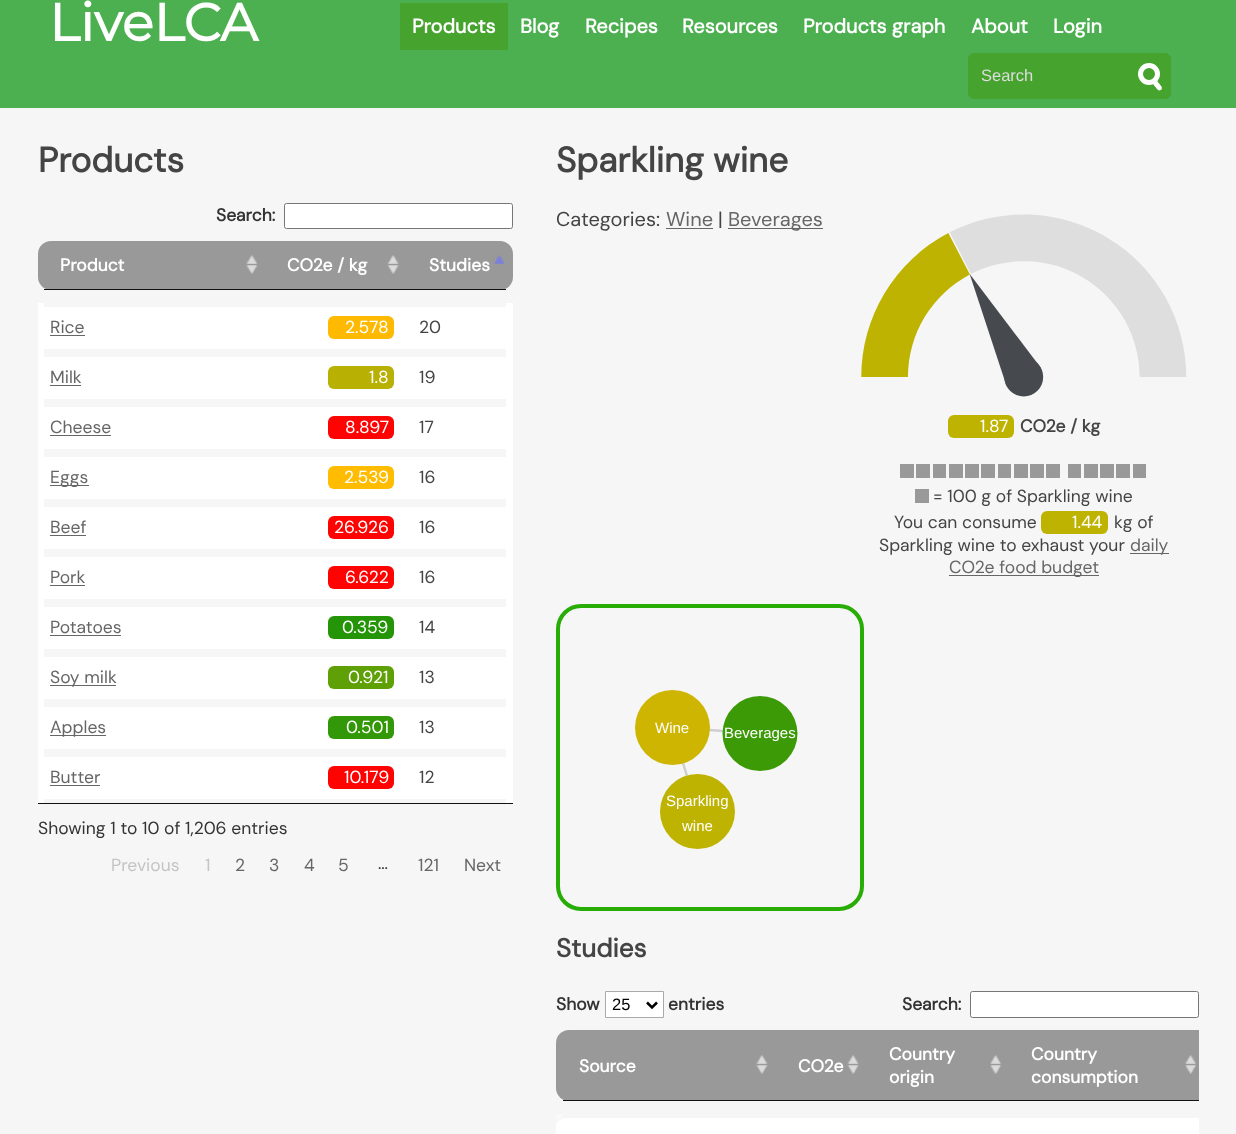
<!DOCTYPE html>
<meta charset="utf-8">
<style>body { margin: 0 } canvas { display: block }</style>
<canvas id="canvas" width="1236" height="1134"></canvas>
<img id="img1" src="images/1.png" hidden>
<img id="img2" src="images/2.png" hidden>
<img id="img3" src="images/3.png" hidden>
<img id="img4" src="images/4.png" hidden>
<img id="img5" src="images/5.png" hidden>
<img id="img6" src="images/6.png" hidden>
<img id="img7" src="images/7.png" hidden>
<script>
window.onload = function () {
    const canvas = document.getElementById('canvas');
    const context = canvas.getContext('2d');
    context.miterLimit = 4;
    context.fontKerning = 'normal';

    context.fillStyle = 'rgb(76, 175, 80)';
    context.fillRect(0, 0, 1236, 1134);
    context.fillStyle = 'rgb(69, 163, 46)';
    context.fillRect(400, 3, 108, 47);
    context.beginPath();
    context.roundRect(968, 53, 203, 46, 6);
    context.fill();
    context.beginPath();
    context.arc(1149, 74, 8.5, 0, 2 * Math.PI);
    context.strokeStyle = 'rgb(255, 255, 255)';
    context.lineWidth = 5;
    context.stroke();
    context.fillStyle = 'rgb(255, 255, 255)';
    context.beginPath();
    context.moveTo(1156, 79.5);
    context.lineTo(1159.5, 84);
    context.bezierCurveTo(1160.5, 85.5, 1163, 87.5, 1161.5, 89.5);
    context.lineTo(1159.5, 90.5);
    context.bezierCurveTo(1157.5, 90.5, 1156, 87.5, 1154.5, 86);
    context.lineTo(1151.5, 81.5);
    context.bezierCurveTo(1151, 79, 1154.5, 77.5, 1156, 79.5);
    context.closePath();
    context.fill();
    context.fillStyle = 'rgb(246, 246, 246)';
    context.fillRect(0, 108, 1236, 1026);
    context.fillStyle = 'rgb(255, 255, 255)';
    context.beginPath();
    context.roundRect(284.5, 203.5, 228, 25, 2);
    context.fill();
    context.strokeStyle = 'rgb(118, 118, 118)';
    context.lineWidth = 1;
    context.stroke();
    context.fillStyle = 'rgb(17, 17, 17)';
    context.fillRect(38, 803, 475, 1);
    context.fillStyle = 'rgb(153, 153, 153)';
    context.beginPath();
    context.roundRect(38, 241, 227, 49, [13, 0, 0, 13]);
    context.fill();
    context.fillStyle = 'rgb(17, 17, 17)';
    context.fillRect(44, 289, 362, 1);
    context.drawImage(document.getElementById('img1'), 246, 255, 12, 19);
    context.fillStyle = 'rgb(153, 153, 153)';
    context.fillRect(265, 241, 141, 48);
    context.drawImage(document.getElementById('img2'), 387, 255, 12, 19);
    context.beginPath();
    context.roundRect(406, 241, 107, 49, [0, 13, 13, 0]);
    context.fill();
    context.fillStyle = 'rgb(17, 17, 17)';
    context.fillRect(406, 289, 100, 1);
    context.drawImage(document.getElementById('img3'), 493, 255, 12, 9);
    context.fillStyle = 'rgb(255, 255, 255)';
    context.fillRect(38, 303, 475, 500);
    context.fillStyle = 'rgb(246, 246, 246)';
    context.fillRect(44, 303, 462, 4);
    context.fillRect(44, 349, 462, 4);
    context.fillStyle = 'rgb(102, 102, 102)';
    context.fillRect(50, 335, 35, 1);
    context.fillStyle = 'rgb(255, 185, 0)';
    context.beginPath();
    context.roundRect(328, 316, 66, 23, 6);
    context.fill();
    context.fillStyle = 'rgb(246, 246, 246)';
    context.fillRect(44, 353, 462, 4);
    context.fillRect(44, 399, 462, 4);
    context.fillStyle = 'rgb(102, 102, 102)';
    context.fillRect(50, 385, 31, 1);
    context.fillStyle = 'rgb(184, 177, 3)';
    context.beginPath();
    context.roundRect(328, 366, 66, 23, 6);
    context.fill();
    context.fillStyle = 'rgb(246, 246, 246)';
    context.fillRect(44, 403, 462, 4);
    context.fillRect(44, 449, 462, 4);
    context.fillStyle = 'rgb(102, 102, 102)';
    context.fillRect(50, 435, 61, 1);
    context.fillStyle = 'rgb(255, 3, 3)';
    context.beginPath();
    context.roundRect(328, 416, 66, 23, 6);
    context.fill();
    context.fillStyle = 'rgb(246, 246, 246)';
    context.fillRect(44, 453, 462, 4);
    context.fillRect(44, 499, 462, 4);
    context.fillStyle = 'rgb(102, 102, 102)';
    context.fillRect(50, 485, 39, 1);
    context.fillStyle = 'rgb(255, 188, 0)';
    context.beginPath();
    context.roundRect(328, 466, 66, 23, 6);
    context.fill();
    context.fillStyle = 'rgb(246, 246, 246)';
    context.fillRect(44, 503, 462, 4);
    context.fillRect(44, 549, 462, 4);
    context.fillStyle = 'rgb(102, 102, 102)';
    context.fillRect(50, 535, 36, 1);
    context.fillStyle = 'rgb(255, 3, 3)';
    context.beginPath();
    context.roundRect(328, 516, 66, 23, 6);
    context.fill();
    context.fillStyle = 'rgb(246, 246, 246)';
    context.fillRect(44, 553, 462, 4);
    context.fillRect(44, 599, 462, 4);
    context.fillStyle = 'rgb(102, 102, 102)';
    context.fillRect(50, 585, 35, 1);
    context.fillStyle = 'rgb(255, 3, 3)';
    context.beginPath();
    context.roundRect(328, 566, 66, 23, 6);
    context.fill();
    context.fillStyle = 'rgb(246, 246, 246)';
    context.fillRect(44, 603, 462, 4);
    context.fillRect(44, 649, 462, 4);
    context.fillStyle = 'rgb(102, 102, 102)';
    context.fillRect(50, 635, 71, 1);
    context.fillStyle = 'rgb(37, 149, 8)';
    context.beginPath();
    context.roundRect(328, 616, 66, 23, 6);
    context.fill();
    context.fillStyle = 'rgb(246, 246, 246)';
    context.fillRect(44, 653, 462, 4);
    context.fillRect(44, 699, 462, 4);
    context.fillStyle = 'rgb(102, 102, 102)';
    context.fillRect(50, 685, 66, 1);
    context.fillStyle = 'rgb(94, 160, 6)';
    context.beginPath();
    context.roundRect(328, 666, 66, 23, 6);
    context.fill();
    context.fillStyle = 'rgb(246, 246, 246)';
    context.fillRect(44, 703, 462, 4);
    context.fillRect(44, 749, 462, 4);
    context.fillStyle = 'rgb(102, 102, 102)';
    context.fillRect(50, 735, 56, 1);
    context.fillStyle = 'rgb(51, 152, 7)';
    context.beginPath();
    context.roundRect(328, 716, 66, 23, 6);
    context.fill();
    context.fillStyle = 'rgb(246, 246, 246)';
    context.fillRect(44, 753, 462, 4);
    context.fillRect(44, 799, 462, 4);
    context.fillStyle = 'rgb(102, 102, 102)';
    context.fillRect(50, 785, 50, 1);
    context.fillStyle = 'rgb(255, 3, 3)';
    context.beginPath();
    context.roundRect(328, 766, 66, 23, 6);
    context.fill();
    context.fillStyle = 'rgb(102, 102, 102)';
    context.fillRect(666, 228, 47, 1);
    context.fillRect(728, 228, 95, 1);
    context.drawImage(document.getElementById('img4'), 861, 214, 326, 183);
    context.fillStyle = 'rgb(191, 179, 2)';
    context.beginPath();
    context.roundRect(948, 415, 66, 23, 6);
    context.fill();
    context.fillStyle = 'rgb(153, 153, 153)';
    context.fillRect(900, 464, 14, 14);
    context.fillRect(916, 464, 14, 14);
    context.fillRect(933, 464, 13, 14);
    context.fillRect(949, 464, 14, 14);
    context.fillRect(965, 464, 14, 14);
    context.fillRect(981, 464, 14, 14);
    context.fillRect(998, 464, 13, 14);
    context.fillRect(1014, 464, 14, 14);
    context.fillRect(1030, 464, 14, 14);
    context.fillRect(1046, 464, 14, 14);
    context.fillRect(1068, 464, 13, 14);
    context.fillRect(1084, 464, 14, 14);
    context.fillRect(1100, 464, 14, 14);
    context.fillRect(1116, 464, 14, 14);
    context.fillRect(1133, 464, 13, 14);
    context.fillRect(915, 489, 14, 14);
    context.fillStyle = 'rgb(191, 179, 2)';
    context.beginPath();
    context.roundRect(1041, 511, 67, 23, 6);
    context.fill();
    context.fillStyle = 'rgb(102, 102, 102)';
    context.fillRect(1130, 553, 39, 1);
    context.fillRect(949, 575, 150, 1);
    context.beginPath();
    context.roundRect(558, 606, 304, 303, 23);
    context.strokeStyle = 'rgb(39, 173, 5)';
    context.lineWidth = 4;
    context.stroke();
    context.beginPath();
    context.moveTo(697.5, 811.5);
    context.lineTo(672.5, 727.5);
    context.strokeStyle = 'rgb(207, 207, 207)';
    context.lineWidth = 2.5;
    context.stroke();
    context.beginPath();
    context.moveTo(672.5, 727.5);
    context.lineTo(760, 733.5);
    context.strokeStyle = 'rgba(50, 50, 50, 0.2)';
    context.stroke();
    context.fillStyle = 'rgb(205, 181, 2)';
    context.beginPath();
    context.arc(672.5, 727.5, 37.5, 0, 2 * Math.PI);
    context.fill();
    context.fillStyle = 'rgb(61, 154, 7)';
    context.beginPath();
    context.arc(760, 733.5, 37.5, 0, 2 * Math.PI);
    context.fill();
    context.fillStyle = 'rgb(191, 179, 2)';
    context.beginPath();
    context.arc(697.5, 811.5, 37.5, 0, 2 * Math.PI);
    context.fill();
    context.fillStyle = 'rgb(255, 255, 255)';
    context.beginPath();
    context.rect(605.5, 991.5, 58, 26);
    context.fill();
    context.strokeStyle = 'rgb(170, 170, 170)';
    context.lineWidth = 1;
    context.stroke();
    context.beginPath();
    context.moveTo(647, 1002.5);
    context.lineTo(652, 1007.5);
    context.lineTo(657, 1002.5);
    context.strokeStyle = 'rgb(0, 0, 0)';
    context.lineWidth = 2.5;
    context.stroke();
    context.beginPath();
    context.roundRect(970.5, 991.5, 228, 26, 2);
    context.fill();
    context.strokeStyle = 'rgb(118, 118, 118)';
    context.lineWidth = 1;
    context.stroke();
    context.fillStyle = 'rgb(153, 153, 153)';
    context.beginPath();
    context.roundRect(556, 1030, 219, 71, [13, 0, 0, 13]);
    context.fill();
    context.fillStyle = 'rgb(17, 17, 17)';
    context.fillRect(563, 1100, 636, 1);
    context.drawImage(document.getElementById('img5'), 756, 1055, 12, 19);
    context.fillStyle = 'rgb(153, 153, 153)';
    context.fillRect(775, 1030, 424, 70);
    context.drawImage(document.getElementById('img2'), 847, 1055, 12, 19);
    context.drawImage(document.getElementById('img6'), 990, 1055, 12, 19);
    context.drawImage(document.getElementById('img7'), 1185, 1055, 12, 19);
    context.fillStyle = 'rgb(249, 249, 249)';
    context.fillRect(556, 1114, 13, 12);
    context.fillStyle = 'rgb(255, 255, 255)';
    context.beginPath();
    context.moveTo(569, 1118);
    context.lineTo(775, 1118);
    context.lineTo(775, 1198);
    context.lineTo(569, 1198);
    context.bezierCurveTo(562, 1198, 556, 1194, 556, 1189);
    context.lineTo(556, 1126);
    context.bezierCurveTo(556, 1121, 562, 1118, 569, 1118);
    context.closePath();
    context.fill();
    context.fillStyle = 'rgb(246, 246, 246)';
    context.fillRect(563, 1114, 6, 4);
    context.fillStyle = 'rgb(255, 255, 255)';
    context.fillRect(775, 1118, 424, 16);
    context.font = 'bold 52.5px Montserrat';
    context.fillText('LiveLCA', 49, 41);
    context.font = 'bold 20px DM Sans';
    context.fillText('Products', 412, 33);
    context.fillText('Blog', 520, 33);
    context.fillText('Recipes', 585, 33);
    context.fillText('Resources', 682, 33);
    context.fillText('Products graph', 803, 33);
    context.fillText('About', 971, 33);
    context.fillText('Login', 1053, 33);
    context.font = '16.5px Liberation Sans';
    context.fillStyle = 'rgb(221, 221, 221)';
    context.fillText('Search', 981, 81);
    context.font = 'bold 35px DM Sans';
    context.fillStyle = 'rgb(68, 68, 68)';
    context.fillText('Products', 38, 172);
    context.font = 'bold 17.5px DM Sans';
    context.fillStyle = 'rgb(51, 51, 51)';
    context.fillText('Search:', 216, 221);
    context.fillStyle = 'rgb(255, 255, 255)';
    context.fillText('Product', 60, 271);
    context.fillText('CO2e / kg', 287, 271);
    context.fillText('Studies', 429, 271);
    context.font = '17.5px DM Sans';
    context.fillStyle = 'rgb(102, 102, 102)';
    context.fillText('Rice', 50, 333);
    context.fillStyle = 'rgb(255, 255, 255)';
    context.fillText('2.578', 345, 333);
    context.fillStyle = 'rgb(68, 68, 68)';
    context.fillText('20', 419, 333);
    context.fillStyle = 'rgb(102, 102, 102)';
    context.fillText('Milk', 50, 383);
    context.fillStyle = 'rgb(255, 255, 255)';
    context.fillText('1.8', 369, 383);
    context.fillStyle = 'rgb(68, 68, 68)';
    context.fillText('19', 419, 383);
    context.fillStyle = 'rgb(102, 102, 102)';
    context.fillText('Cheese', 50, 433);
    context.fillStyle = 'rgb(255, 255, 255)';
    context.fillText('8.897', 345, 433);
    context.fillStyle = 'rgb(68, 68, 68)';
    context.fillText('17', 419, 433);
    context.fillStyle = 'rgb(102, 102, 102)';
    context.fillText('Eggs', 50, 483);
    context.fillStyle = 'rgb(255, 255, 255)';
    context.fillText('2.539', 344, 483);
    context.fillStyle = 'rgb(68, 68, 68)';
    context.fillText('16', 419, 483);
    context.fillStyle = 'rgb(102, 102, 102)';
    context.fillText('Beef', 50, 533);
    context.fillStyle = 'rgb(255, 255, 255)';
    context.fillText('26.926', 334, 533);
    context.fillStyle = 'rgb(68, 68, 68)';
    context.fillText('16', 419, 533);
    context.fillStyle = 'rgb(102, 102, 102)';
    context.fillText('Pork', 50, 583);
    context.fillStyle = 'rgb(255, 255, 255)';
    context.fillText('6.622', 345, 583);
    context.fillStyle = 'rgb(68, 68, 68)';
    context.fillText('16', 419, 583);
    context.fillStyle = 'rgb(102, 102, 102)';
    context.fillText('Potatoes', 50, 633);
    context.fillStyle = 'rgb(255, 255, 255)';
    context.fillText('0.359', 342, 633);
    context.fillStyle = 'rgb(68, 68, 68)';
    context.fillText('14', 419, 633);
    context.fillStyle = 'rgb(102, 102, 102)';
    context.fillText('Soy milk', 50, 683);
    context.fillStyle = 'rgb(255, 255, 255)';
    context.fillText('0.921', 348, 683);
    context.fillStyle = 'rgb(68, 68, 68)';
    context.fillText('13', 419, 683);
    context.fillStyle = 'rgb(102, 102, 102)';
    context.fillText('Apples', 50, 733);
    context.fillStyle = 'rgb(255, 255, 255)';
    context.fillText('0.501', 346, 733);
    context.fillStyle = 'rgb(68, 68, 68)';
    context.fillText('13', 419, 733);
    context.fillStyle = 'rgb(102, 102, 102)';
    context.fillText('Butter', 50, 783);
    context.fillStyle = 'rgb(255, 255, 255)';
    context.fillText('10.179', 344, 783);
    context.fillStyle = 'rgb(68, 68, 68)';
    context.fillText('12', 419, 783);
    context.fillStyle = 'rgb(51, 51, 51)';
    context.fillText('Showing 1 to 10 of 1,206 entries', 38, 834);
    context.fillStyle = 'rgb(196, 196, 196)';
    context.fillText('Previous', 111, 871);
    context.fillText('1', 205, 871);
    context.fillStyle = 'rgb(102, 102, 102)';
    context.fillText('2', 235, 871);
    context.fillText('3', 269, 871);
    context.fillText('4', 304, 871);
    context.fillText('5', 338, 871);
    context.fillStyle = 'rgb(51, 51, 51)';
    context.fillText('…', 378, 869);
    context.fillStyle = 'rgb(102, 102, 102)';
    context.fillText('121', 418, 871);
    context.fillText('Next', 464, 871);
    context.font = 'bold 35px DM Sans';
    context.fillStyle = 'rgb(68, 68, 68)';
    context.fillText('Sparkling wine', 556, 172);
    context.font = '20px DM Sans';
    context.fillText('Categories:', 556, 226);
    context.fillStyle = 'rgb(102, 102, 102)';
    context.fillText('Wine', 666, 226);
    context.fillStyle = 'rgb(68, 68, 68)';
    context.fillText('|', 718, 226);
    context.fillStyle = 'rgb(102, 102, 102)';
    context.fillText('Beverages', 728, 226);
    context.font = '17.5px DM Sans';
    context.fillStyle = 'rgb(255, 255, 255)';
    context.fillText('1.87', 980, 432);
    context.font = 'bold 17.5px DM Sans';
    context.fillStyle = 'rgb(68, 68, 68)';
    context.fillText('CO2e / kg', 1020, 432);
    context.font = '17.5px DM Sans';
    context.fillText('= 100 g of Sparkling wine', 933, 502);
    context.fillText('You can consume', 894, 528);
    context.fillStyle = 'rgb(255, 255, 255)';
    context.fillText('1.44', 1072, 528);
    context.fillStyle = 'rgb(68, 68, 68)';
    context.fillText('kg of', 1114, 528);
    context.fillText('Sparkling wine to exhaust your', 879, 551);
    context.fillStyle = 'rgb(102, 102, 102)';
    context.fillText('daily', 1130, 551);
    context.fillText('CO2e food budget', 949, 573);
    context.font = '15px Liberation Sans';
    context.fillStyle = 'rgb(255, 255, 255)';
    context.fillText('Wine', 655, 733);
    context.fillText('Beverages', 724, 738);
    context.fillText('Sparkling', 666, 806);
    context.fillText('wine', 682, 831);
    context.font = 'bold 26px DM Sans';
    context.fillStyle = 'rgb(68, 68, 68)';
    context.fillText('Studies', 556, 957);
    context.font = 'bold 17.5px DM Sans';
    context.fillStyle = 'rgb(51, 51, 51)';
    context.fillText('Show', 556, 1010);
    context.font = '16.5px Liberation Sans';
    context.fillStyle = 'rgb(0, 0, 0)';
    context.fillText('25', 612, 1010);
    context.font = 'bold 17.5px DM Sans';
    context.fillStyle = 'rgb(51, 51, 51)';
    context.fillText('entries', 668, 1010);
    context.fillText('Search:', 902, 1010);
    context.fillStyle = 'rgb(255, 255, 255)';
    context.fillText('Source', 579, 1072);
    context.fillText('CO2e', 798, 1072);
    context.fillText('Country', 889, 1060);
    context.fillText('origin', 889, 1083);
    context.fillText('Country', 1031, 1060);
    context.fillText('consumption', 1031, 1083);
};
</script>
